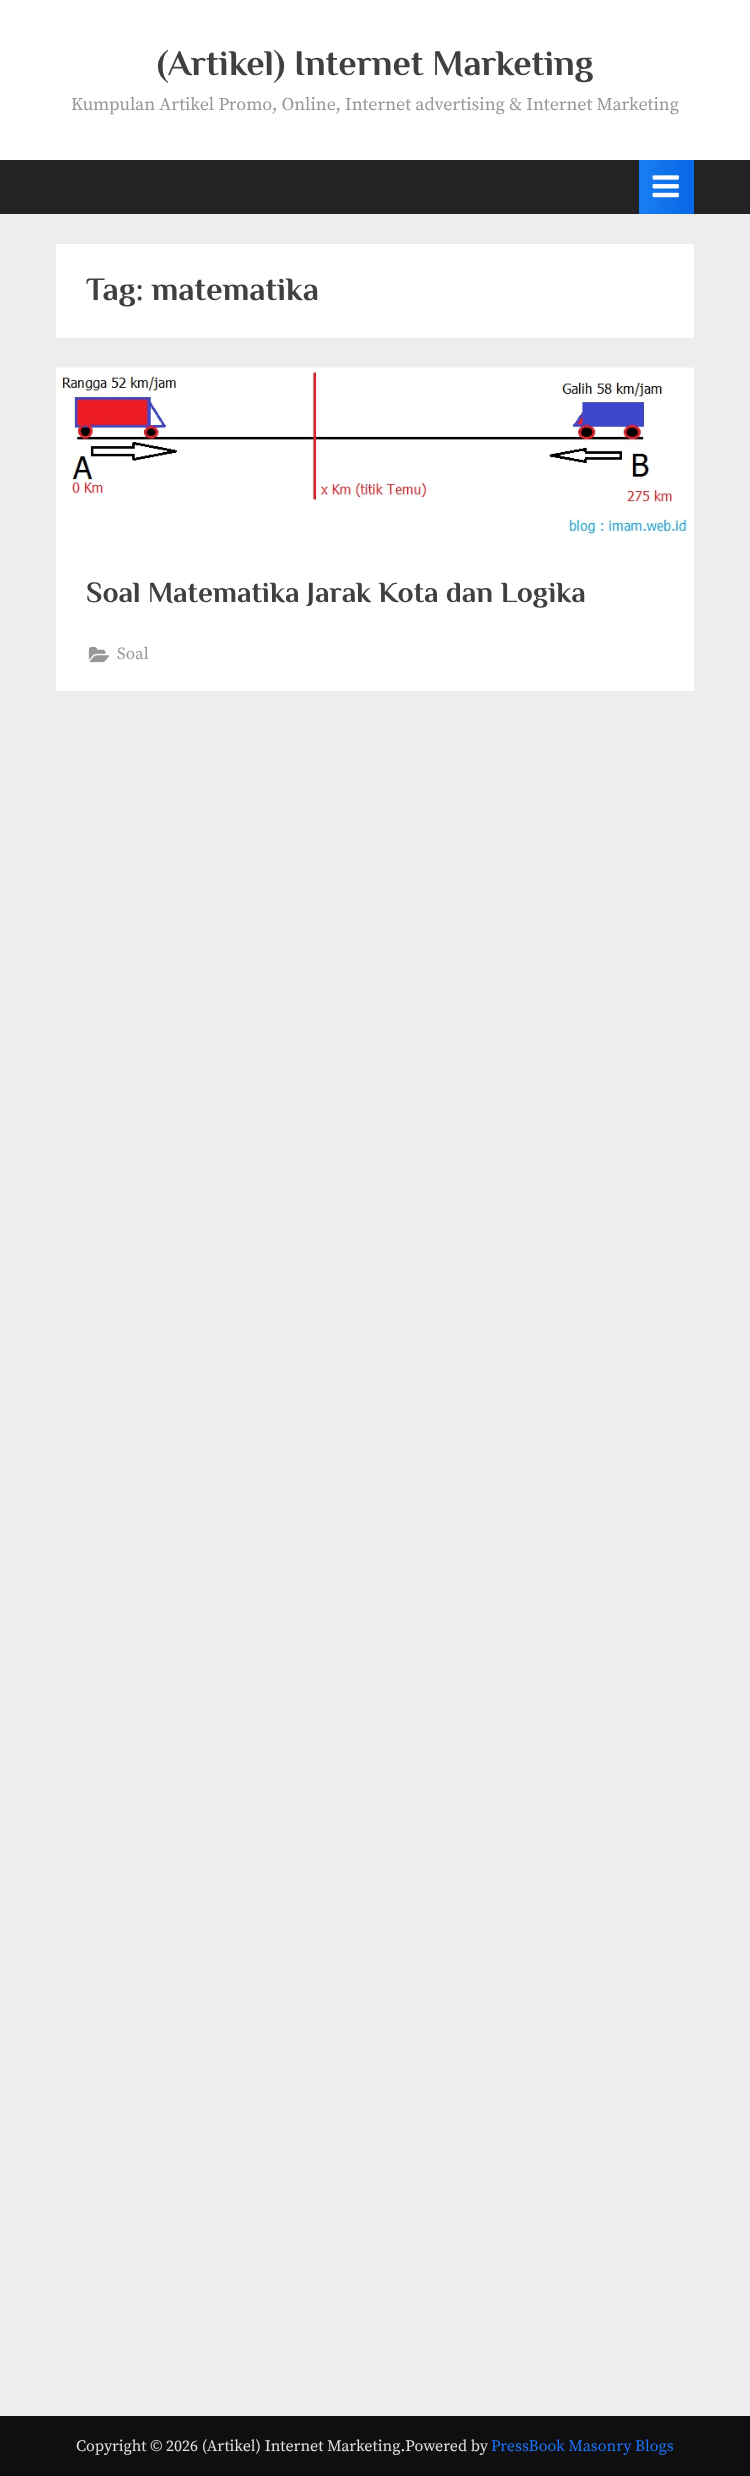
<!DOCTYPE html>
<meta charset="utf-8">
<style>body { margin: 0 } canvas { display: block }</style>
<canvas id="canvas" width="750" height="2476"></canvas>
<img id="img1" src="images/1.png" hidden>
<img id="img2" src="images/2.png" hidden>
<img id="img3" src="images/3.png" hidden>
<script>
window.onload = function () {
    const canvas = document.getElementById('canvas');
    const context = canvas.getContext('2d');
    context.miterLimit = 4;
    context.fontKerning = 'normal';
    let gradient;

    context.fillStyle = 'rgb(237, 237, 237)';
    context.fillRect(0, 0, 750, 2476);
    context.fillStyle = 'rgb(255, 255, 255)';
    context.fillRect(0, 0, 750, 160);
    context.fillStyle = 'rgb(35, 35, 35)';
    context.fillRect(0, 160, 750, 54);
    gradient = context.createLinearGradient(541, 187, 641, 187);
    gradient.addColorStop(0, 'rgb(24, 125, 242)');
    gradient.addColorStop(0.51, 'rgb(9, 104, 229)');
    gradient.addColorStop(1, 'rgb(24, 125, 242)');
    context.fillStyle = gradient;
    context.fillRect(639, 160, 2, 54);
    gradient = context.createLinearGradient(641, 187, 741, 187);
    gradient.addColorStop(0, 'rgb(24, 125, 242)');
    gradient.addColorStop(0.51, 'rgb(9, 104, 229)');
    gradient.addColorStop(1, 'rgb(24, 125, 242)');
    context.fillStyle = gradient;
    context.fillRect(641, 160, 53, 54);
    context.drawImage(document.getElementById('img1'), 652, 175, 27, 23);
    context.fillStyle = 'rgb(255, 255, 255)';
    context.fillRect(56, 244, 638, 94);
    context.fillRect(56, 368, 638, 323);
    context.drawImage(document.getElementById('img2'), 56, 367, 638, 170);
    context.drawImage(document.getElementById('img3'), 88, 646, 22, 17);
    context.fillStyle = 'rgb(15, 15, 15)';
    context.fillRect(0, 2416, 750, 60);
    context.font = 'bold 36px Philosopher';
    context.fillStyle = 'rgb(64, 64, 64)';
    context.fillText('(Artikel) Internet Marketing', 157, 75);
    context.font = '18px Source Serif Pro';
    context.fillStyle = 'rgb(151, 151, 151)';
    context.fillText('Kumpulan Artikel Promo, Online, Internet advertising & Internet Marketing', 71, 110);
    context.font = 'bold 32.5px Philosopher';
    context.fillStyle = 'rgb(64, 64, 64)';
    context.fillText('Tag: matematika', 86, 300);
    context.font = 'bold 29.25px Philosopher';
    context.fillText('Soal Matematika Jarak Kota dan Logika', 86, 602);
    context.font = '17px Source Serif Pro';
    context.fillStyle = 'rgb(151, 151, 151)';
    context.fillText('Soal', 117, 659);
    context.font = '16px Source Serif Pro';
    context.fillStyle = 'rgb(225, 225, 225)';
    context.fillText('Copyright © 2026 (Artikel) Internet Marketing.Powered by', 76, 2451);
    context.fillStyle = 'rgb(25, 116, 252)';
    context.fillText('PressBook Masonry Blogs', 491, 2451);
};
</script>
